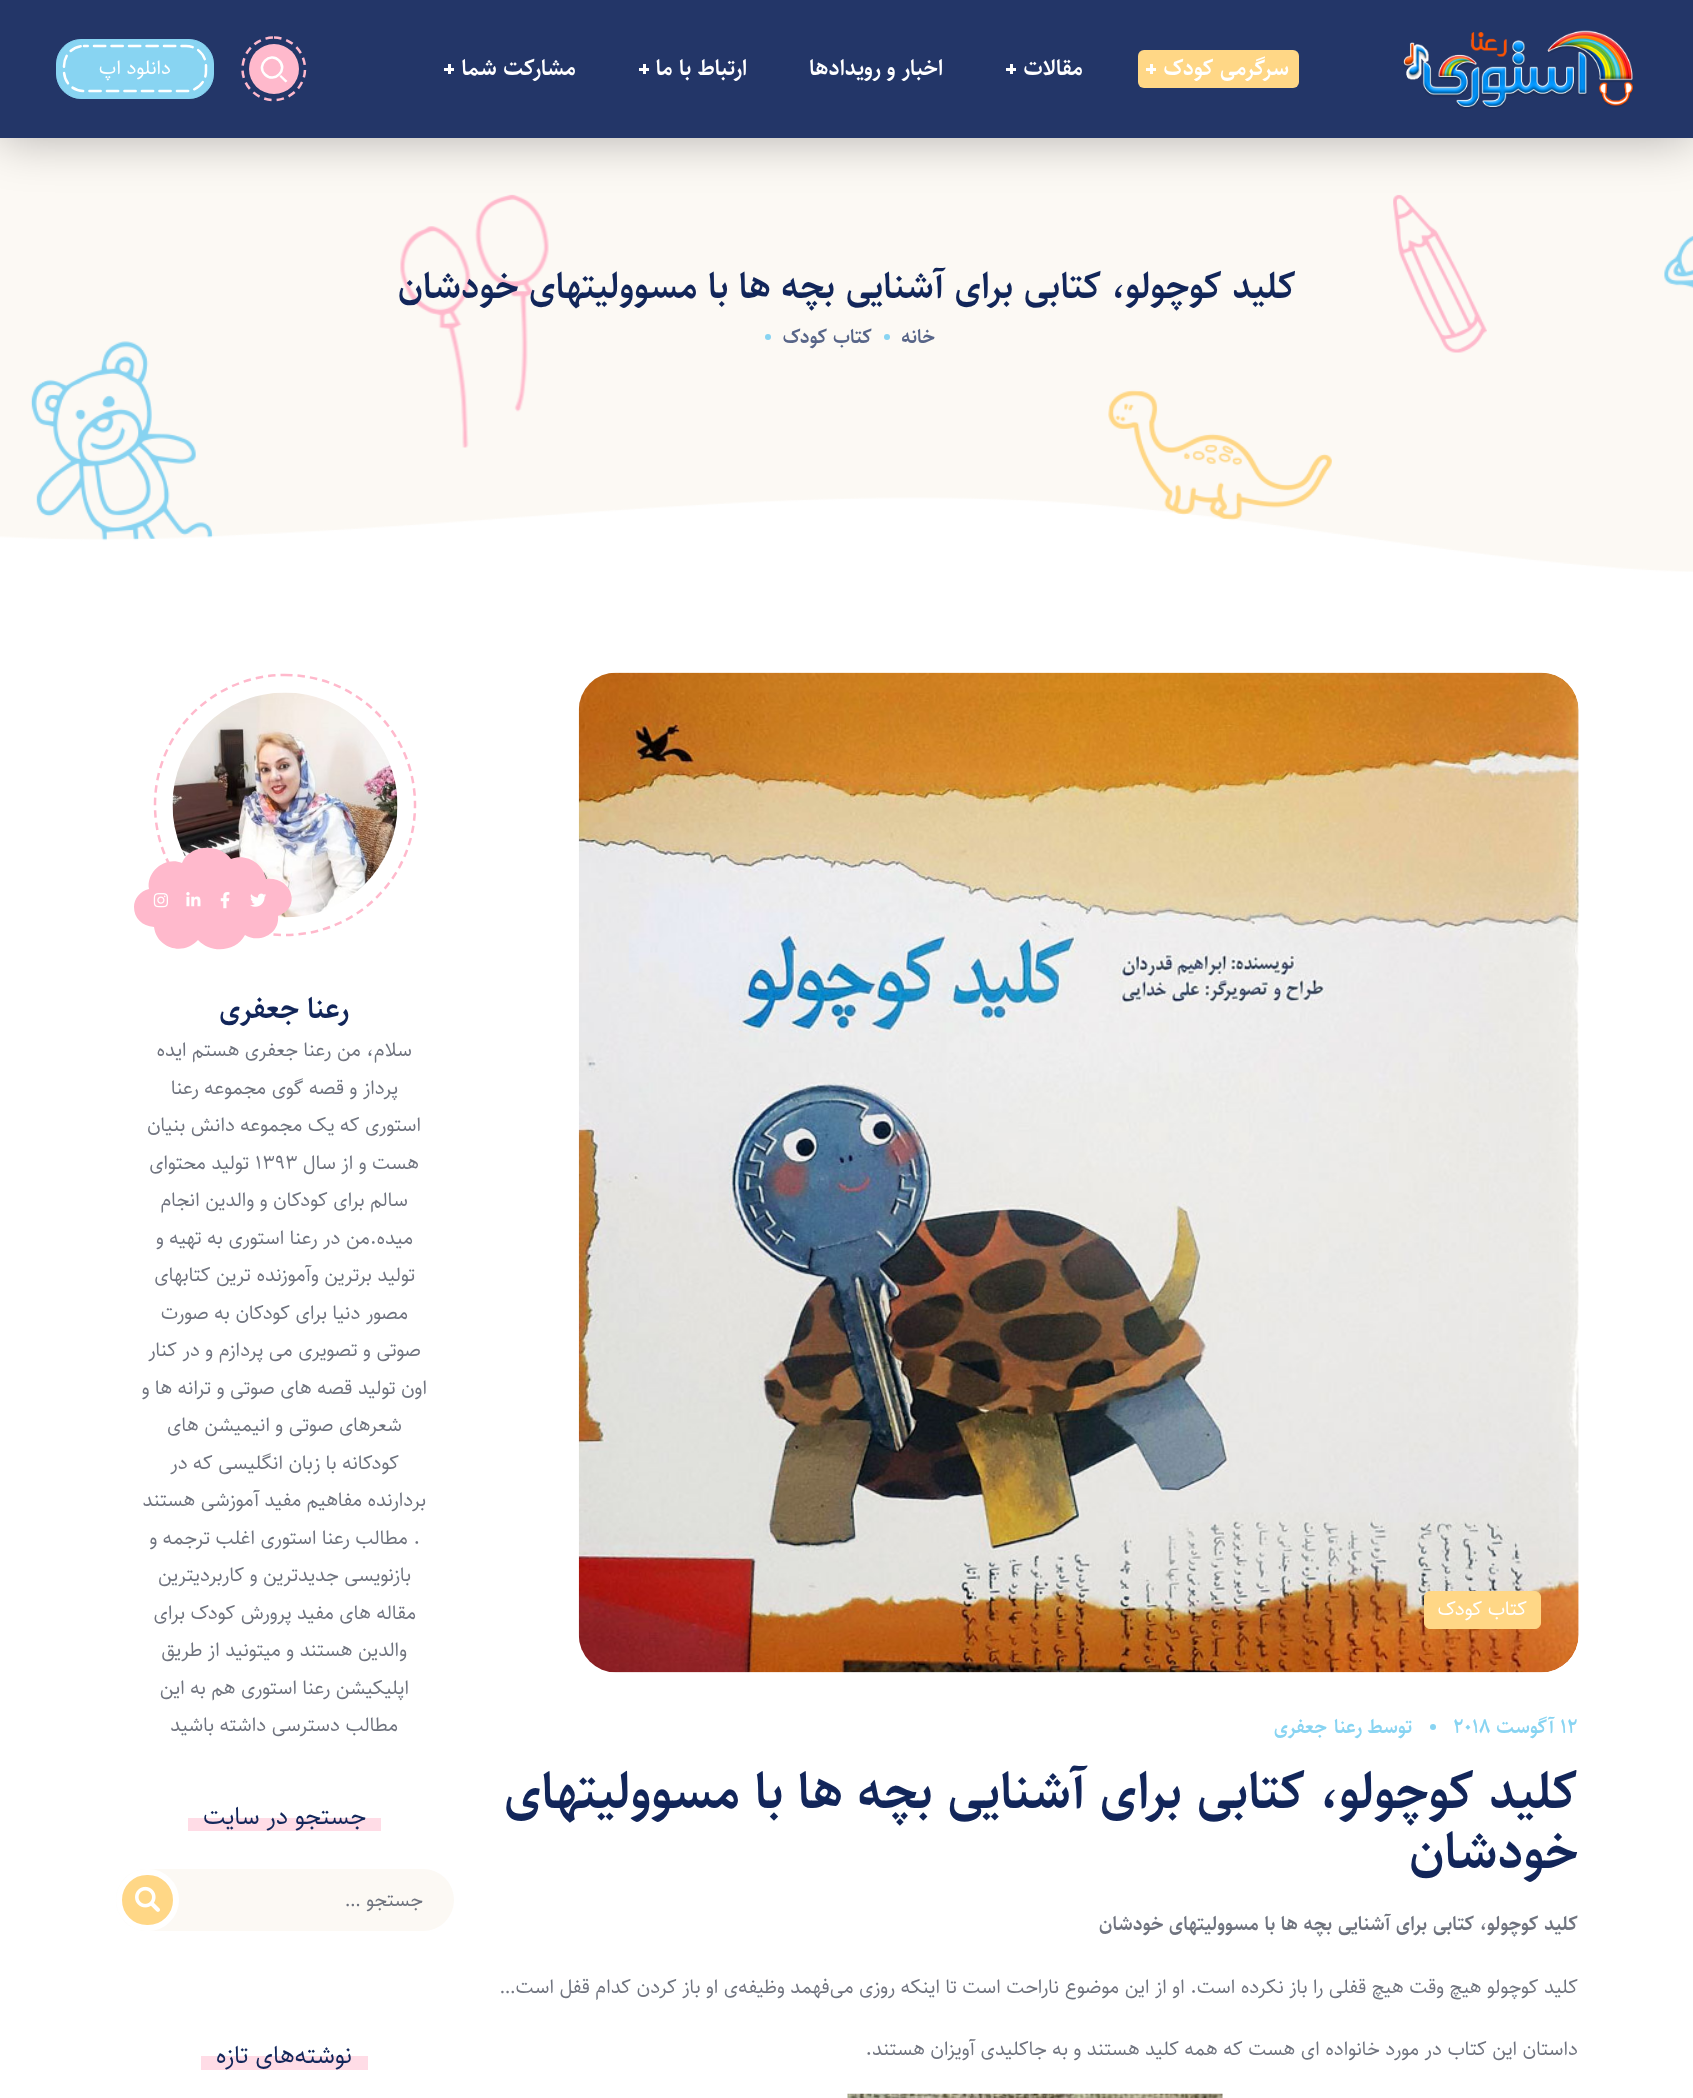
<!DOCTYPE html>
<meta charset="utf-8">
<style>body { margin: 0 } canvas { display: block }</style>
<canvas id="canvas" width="1693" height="2098"></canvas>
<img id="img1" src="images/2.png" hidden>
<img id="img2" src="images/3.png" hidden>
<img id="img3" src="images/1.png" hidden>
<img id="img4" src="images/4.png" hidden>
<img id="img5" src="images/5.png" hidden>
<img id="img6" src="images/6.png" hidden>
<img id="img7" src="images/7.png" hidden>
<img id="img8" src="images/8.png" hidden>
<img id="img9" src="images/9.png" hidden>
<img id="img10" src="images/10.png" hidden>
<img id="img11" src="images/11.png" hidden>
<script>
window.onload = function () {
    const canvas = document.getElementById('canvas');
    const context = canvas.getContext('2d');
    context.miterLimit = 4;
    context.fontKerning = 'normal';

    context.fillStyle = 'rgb(255, 255, 255)';
    context.fillRect(0, 0, 1693, 2098);
    context.drawImage(document.getElementById('img1'), 0, 138, 1693, 434);
    context.drawImage(document.getElementById('img2'), 400, 194, 149, 254);
    context.fillStyle = 'rgba(0, 0, 0, 0.3)';
    context.filter = 'blur(25px)';
    context.beginPath();
    context.rect(0, 0, 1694, 138);
    context.fill();
    context.filter = 'none';
    context.fillStyle = 'rgb(35, 54, 104)';
    context.fillRect(0, 0, 1693, 138);
    context.drawImage(document.getElementById('img3'), 1403, 30, 231, 79);
    context.fillStyle = 'rgb(255, 215, 134)';
    context.beginPath();
    context.roundRect(1138, 50, 161, 38, 6);
    context.fill();
    context.fillStyle = 'rgb(255, 255, 255)';
    context.fillRect(1146, 68, 10, 3);
    context.fillRect(1150, 64, 3, 10);
    context.fillRect(1006, 68, 10, 3);
    context.fillRect(1010, 64, 3, 10);
    context.fillRect(639, 68, 10, 3);
    context.fillRect(643, 64, 3, 10);
    context.fillRect(444, 68, 10, 3);
    context.fillRect(448, 64, 3, 10);
    context.fillStyle = 'rgb(255, 185, 204)';
    context.beginPath();
    context.arc(274, 69, 25, 0, 2 * Math.PI);
    context.fill();
    context.beginPath();
    context.moveTo(274, 37.5);
    context.bezierCurveTo(291, 37.5, 305, 51.5, 305, 69);
    context.bezierCurveTo(305, 86, 291, 100, 274, 100);
    context.bezierCurveTo(256.5, 100, 242.5, 86, 242.5, 69);
    context.bezierCurveTo(242.5, 51.5, 256.5, 37.5, 274, 37.5);
    context.closePath();
    context.strokeStyle = 'rgb(255, 185, 204)';
    context.lineWidth = 2.5;
    context.setLineDash([7.5, 5]);
    context.stroke();
    context.beginPath();
    context.moveTo(279, 60.5);
    context.bezierCurveTo(288.5, 69.5, 274.5, 84, 265, 74.5);
    context.bezierCurveTo(255.5, 65.5, 270, 51, 279, 60.5);
    context.closePath();
    context.strokeStyle = 'rgb(255, 255, 255)';
    context.setLineDash([]);
    context.stroke();
    context.fillStyle = 'rgb(255, 255, 255)';
    context.beginPath();
    context.moveTo(279.5, 76.5);
    context.lineTo(281, 75);
    context.lineTo(287.5, 81);
    context.lineTo(285.5, 82.5);
    context.closePath();
    context.fill();
    context.fillStyle = 'rgb(136, 212, 242)';
    context.beginPath();
    context.roundRect(56.5, 39.5, 157, 59, 24.5);
    context.fill();
    context.strokeStyle = 'rgb(136, 212, 242)';
    context.lineWidth = 1;
    context.stroke();
    context.beginPath();
    context.moveTo(84, 46);
    context.lineTo(186, 46);
    context.bezierCurveTo(197, 46, 206, 55, 206, 66);
    context.lineTo(206, 71);
    context.bezierCurveTo(206, 82.5, 197, 91, 186, 91);
    context.lineTo(84, 91);
    context.bezierCurveTo(72.5, 91, 64, 82.5, 64, 71);
    context.lineTo(64, 66);
    context.bezierCurveTo(64, 55, 72.5, 46, 84, 46);
    context.closePath();
    context.strokeStyle = 'rgb(255, 255, 255)';
    context.lineWidth = 2.5;
    context.lineCap = 'round';
    context.setLineDash([11.25, 6.25]);
    context.lineDashOffset = 1250;
    context.stroke();
    context.beginPath();
    context.arc(887, 337, 3, 0, 2 * Math.PI);
    context.fill();
    context.beginPath();
    context.arc(768, 337, 3, 0, 2 * Math.PI);
    context.fill();
    context.drawImage(document.getElementById('img4'), 578, 672, 1001, 1001);
    context.fillStyle = 'rgb(255, 215, 134)';
    context.beginPath();
    context.roundRect(1424.5, 1591.5, 116, 37, 5.5);
    context.fill();
    context.strokeStyle = 'rgb(255, 215, 134)';
    context.lineWidth = 1;
    context.setLineDash([]);
    context.stroke();
    context.fillStyle = 'rgb(136, 212, 242)';
    context.beginPath();
    context.arc(1433, 1727, 3, 0, 2 * Math.PI);
    context.fill();
    context.drawImage(document.getElementById('img5'), 847, 2093, 376, 5);
    context.beginPath();
    context.moveTo(285, 675);
    context.bezierCurveTo(357, 675, 415, 733, 415, 805);
    context.bezierCurveTo(415, 877, 357, 935, 285, 935);
    context.bezierCurveTo(213, 935, 155, 877, 155, 805);
    context.bezierCurveTo(155, 733, 213, 675, 285, 675);
    context.closePath();
    context.strokeStyle = 'rgb(255, 185, 204)';
    context.lineWidth = 2.5;
    context.lineCap = 'butt';
    context.setLineDash([7.5, 5]);
    context.lineDashOffset = 0;
    context.stroke();
    context.drawImage(document.getElementById('img6'), 172, 692, 226, 226);
    context.fillStyle = 'rgb(255, 185, 204)';
    context.beginPath();
    context.moveTo(134, 907);
    context.bezierCurveTo(134, 899, 140, 891, 149, 889);
    context.bezierCurveTo(146, 871, 166, 856, 182, 863);
    context.bezierCurveTo(190, 844, 219, 843, 231, 859);
    context.bezierCurveTo(246, 853, 263, 863, 266, 879);
    context.bezierCurveTo(291, 876, 303, 907, 278, 916);
    context.bezierCurveTo(280, 934, 259, 944, 245, 935);
    context.bezierCurveTo(236, 952, 211, 954, 198, 940);
    context.bezierCurveTo(184, 956, 157, 949, 154, 927);
    context.bezierCurveTo(142, 926, 134, 918, 134, 907);
    context.closePath();
    context.fill();
    context.drawImage(document.getElementById('img7'), 250, 893, 16, 14);
    context.drawImage(document.getElementById('img8'), 220, 892, 10, 17);
    context.drawImage(document.getElementById('img9'), 186, 892, 15, 15);
    context.drawImage(document.getElementById('img10'), 153, 893, 15, 15);
    context.fillStyle = 'rgb(255, 220, 230)';
    context.fillRect(188, 1818, 193, 13);
    context.fillStyle = 'rgb(252, 249, 244)';
    context.beginPath();
    context.roundRect(116, 1869, 338, 62, 31);
    context.fill();
    context.fillStyle = 'rgb(255, 215, 134)';
    context.beginPath();
    context.roundRect(119, 1872, 57, 56, 28);
    context.fill();
    context.strokeStyle = 'rgb(255, 255, 255)';
    context.lineWidth = 6;
    context.setLineDash([]);
    context.stroke();
    context.drawImage(document.getElementById('img11'), 135, 1886, 25, 26);
    context.fillStyle = 'rgb(255, 220, 230)';
    context.fillRect(201, 2056, 167, 14);
    context.direction = 'rtl';
    context.font = 'bold 22.5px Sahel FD';
    context.fillStyle = 'rgb(255, 255, 255)';
    context.fillText('سرگرمی کودک', 1289, 75);
    context.fillText('مقالات', 1083, 75);
    context.fillText('اخبار و رویدادها', 943, 75);
    context.fillText('ارتباط با ما', 747, 75);
    context.fillText('مشارکت شما', 576, 75);
    context.font = '20px Sahel FD';
    context.fillText('دانلود اپ', 171, 74);
    context.font = 'bold 37.5px Sahel FD';
    context.fillStyle = 'rgb(18, 38, 90)';
    context.fillText('کلید کوچولو، کتابی برای آشنایی بچه ها با مسوولیتهای خودشان', 1296, 298);
    context.font = 'bold 20px Sahel FD';
    context.fillStyle = 'rgb(88, 101, 136)';
    context.fillText('خانه', 935, 343);
    context.fillText('کتاب کودک', 872, 343);
    context.font = '20px Sahel FD';
    context.fillStyle = 'rgb(255, 255, 255)';
    context.fillText('کتاب کودک', 1527, 1615);
    context.letterSpacing = '-0.25px';
    context.direction = 'ltr';
    context.font = 'bold 20px Sahel FD';
    context.fillStyle = 'rgb(136, 212, 242)';
    context.fillText('12', 1560, 1733);
    context.direction = 'rtl';
    context.fillText('آگوست', 1554, 1733);
    context.direction = 'ltr';
    context.fillText('2018', 1453, 1733);
    context.direction = 'rtl';
    context.fillText('توسط', 1412, 1733);
    context.wordSpacing = '2px';
    context.fillText('رعنا جعفری', 1362, 1733);
    context.letterSpacing = '0px';
    context.wordSpacing = '0px';
    context.font = 'bold 52.5px Sahel FD';
    context.fillStyle = 'rgb(18, 38, 90)';
    context.fillText('کلید کوچولو، کتابی برای آشنایی بچه ها با مسوولیتهای', 1578, 1808);
    context.fillText('خودشان', 1578, 1868);
    context.font = 'bold 20px Sahel FD';
    context.fillStyle = 'rgb(112, 116, 127)';
    context.fillText('کلید کوچولو، کتابی برای آشنایی بچه ها با مسوولیتهای خودشان', 1578, 1930);
    context.font = '20px Sahel FD';
    context.fillText('کلید کوچولو هیچ وقت هیچ قفلی را باز نکرده است. او از این موضوع ناراحت است تا اینکه روزی می‌فهمد وظیفه‌ی او باز کردن کدام قفل است…', 1578, 1993);
    context.fillText('داستان این کتاب در مورد خانواده ای هست که همه کلید هستند و به جاکلیدی آویزان هستند.', 1578, 2055);
    context.font = 'bold 30px Sahel FD';
    context.fillStyle = 'rgb(18, 38, 90)';
    context.fillText('رعنا جعفری', 349, 1018);
    context.font = '20px Sahel FD';
    context.fillStyle = 'rgb(112, 116, 127)';
    context.fillText('سلام، من رعنا جعفری هستم ایده', 412, 1056);
    context.fillText('پرداز و قصه گوی مجموعه رعنا', 398, 1094);
    context.fillText('استوری که یک مجموعه دانش بنیان', 421, 1131);
    context.fillText('هست و از سال', 419, 1169);
    context.direction = 'ltr';
    context.fillText('۱۳۹۳', 255, 1169);
    context.direction = 'rtl';
    context.fillText('تولید محتوای', 249, 1169);
    context.fillText('سالم برای کودکان و والدین انجام', 408, 1206);
    context.fillText('میده.من در رعنا استوری به تهیه و', 413, 1244);
    context.fillText('تولید برترین وآموزنده ترین کتابهای', 415, 1281);
    context.fillText('مصور دنیا برای کودکان به صورت', 408, 1319);
    context.fillText('صوتی و تصویری می پردازم و در کنار', 421, 1356);
    context.fillText('اون تولید قصه های صوتی و', 427, 1394);
    context.fillText('ترانه ها و', 211, 1394);
    context.fillText('شعرهای صوتی', 402, 1431);
    context.fillText('و', 283, 1431);
    context.fillText('انیمیشن های', 270, 1431);
    context.fillText('کودکانه با زبان انگلیسی که در', 399, 1469);
    context.fillText('بردارنده مفاهیم مفید آموزشی هستند', 426, 1506);
    context.fillText('. مطالب رعنا استوری اغلب ترجمه و', 420, 1544);
    context.fillText('بازنویسی جدیدترین و کاربردیترین', 411, 1581);
    context.fillText('مقاله های مفید پرورش کودک برای', 416, 1619);
    context.fillText('والدین هستند و میتونید از طریق', 407, 1656);
    context.fillText('اپلیکیشن رعنا استوری هم به این', 409, 1694);
    context.fillText('مطالب دسترسی داشته باشید', 398, 1731);
    context.font = '25px Sahel FD';
    context.fillStyle = 'rgb(18, 38, 90)';
    context.fillText('جستجو در سایت', 366, 1824);
    context.font = '20px Sahel FD';
    context.fillStyle = 'rgb(112, 116, 127)';
    context.fillText('جستجو …', 423, 1906);
    context.font = '25px Sahel FD';
    context.fillStyle = 'rgb(18, 38, 90)';
    context.fillText('نوشته‌های تازه', 352, 2063);
};
</script>
